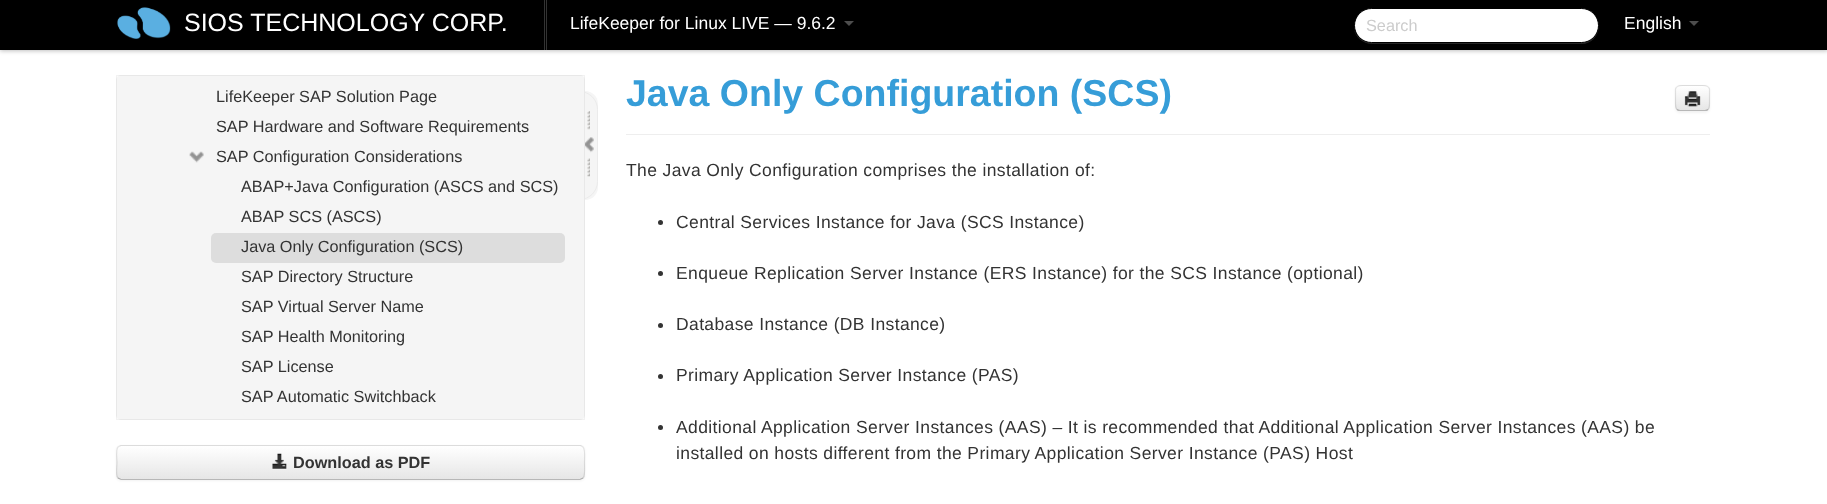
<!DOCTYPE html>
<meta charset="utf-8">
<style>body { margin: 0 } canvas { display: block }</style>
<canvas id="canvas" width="1827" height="504"></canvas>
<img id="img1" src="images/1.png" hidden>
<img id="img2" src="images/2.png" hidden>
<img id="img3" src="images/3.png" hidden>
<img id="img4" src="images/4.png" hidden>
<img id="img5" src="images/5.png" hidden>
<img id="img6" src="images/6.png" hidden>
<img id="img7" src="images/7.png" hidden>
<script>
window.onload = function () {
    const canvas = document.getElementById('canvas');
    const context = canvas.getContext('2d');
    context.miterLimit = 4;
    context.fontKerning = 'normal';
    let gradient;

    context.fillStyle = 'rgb(255, 255, 255)';
    context.fillRect(0, 0, 1827, 504);
    context.fillStyle = 'rgba(0, 0, 0, 0.25)';
    context.filter = 'blur(2px)';
    context.beginPath();
    context.rect(0, 1, 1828, 50);
    context.fill();
    context.filter = 'none';
    context.fillStyle = 'rgb(0, 0, 0)';
    context.fillRect(0, 0, 1827, 50);
    context.drawImage(document.getElementById('img1'), 117, 7, 54, 32);
    context.fillStyle = 'rgb(51, 51, 51)';
    context.fillRect(544, 0, 3, 50);
    context.fillStyle = 'rgb(0, 0, 0)';
    context.fillRect(545, 0, 1, 50);
    context.fillStyle = 'rgb(77, 77, 77)';
    context.beginPath();
    context.moveTo(844, 21);
    context.lineTo(854, 21);
    context.lineTo(849, 26);
    context.closePath();
    context.fill();
    context.fillStyle = 'rgb(38, 38, 38)';
    context.beginPath();
    context.moveTo(1354, 29);
    context.bezierCurveTo(1355, 37, 1363, 44, 1372, 44);
    context.lineTo(1582, 44);
    context.bezierCurveTo(1591, 44, 1599, 36, 1599, 26);
    context.lineTo(1599, 23);
    context.lineTo(1599, 25);
    context.bezierCurveTo(1599, 35, 1591, 42, 1581, 42);
    context.lineTo(1371, 42);
    context.bezierCurveTo(1363, 42, 1356, 37, 1354, 29);
    context.closePath();
    context.fill();
    context.fillStyle = 'rgb(255, 255, 255)';
    context.beginPath();
    context.roundRect(1354.5, 8.5, 244, 34, 17);
    context.fill();
    context.strokeStyle = 'rgb(0, 0, 0)';
    context.stroke();
    context.fillStyle = 'rgb(77, 77, 77)';
    context.beginPath();
    context.moveTo(1689, 21);
    context.lineTo(1699, 21);
    context.lineTo(1694, 26);
    context.closePath();
    context.fill();
    context.fillStyle = 'rgb(245, 245, 245)';
    context.beginPath();
    context.roundRect(116, 75, 469, 345, 5);
    context.fill();
    context.strokeStyle = 'rgba(0, 0, 0, 0.05)';
    context.strokeRect(116.5, 75.5, 468, 344);
    context.drawImage(document.getElementById('img2'), 189, 151, 15, 12);
    context.fillStyle = 'rgb(221, 221, 221)';
    context.beginPath();
    context.roundRect(211, 233, 354, 30, 5);
    context.fill();
    context.fillStyle = 'rgb(245, 245, 245)';
    context.beginPath();
    context.roundRect(585, 91, 13, 109, [0, 18.5, 18.5, 0]);
    context.fill();
    context.save();
    context.beginPath();
    context.rect(585, 79, 25, 137);
    context.clip();
    context.beginPath();
    context.roundRect(561.5, 91.5, 36, 108, 18);
    context.strokeStyle = 'rgb(235, 235, 235)';
    context.stroke();
    context.restore();
    context.drawImage(document.getElementById('img3'), 587, 111, 3, 19);
    context.drawImage(document.getElementById('img4'), 585, 137, 9, 16);
    context.drawImage(document.getElementById('img5'), 587, 158, 3, 19);
    context.fillStyle = 'rgba(0, 0, 0, 0.05)';
    context.filter = 'blur(1px)';
    context.beginPath();
    context.roundRect(116, 446, 469, 35, 5);
    context.fill();
    context.filter = 'none';
    context.fillStyle = 'rgb(245, 245, 245)';
    context.beginPath();
    context.roundRect(116, 445, 469, 35, 5);
    context.fill();
    context.save();
    context.beginPath();
    context.roundRect(116, 445, 469, 35, 5);
    context.clip();
    gradient = context.createLinearGradient(351, 446, 351, 479);
    gradient.addColorStop(0, 'rgb(255, 255, 255)');
    gradient.addColorStop(1, 'rgb(230, 230, 230)');
    context.fillStyle = gradient;
    context.fillRect(116, 446, 469, 33);
    context.restore();
    context.beginPath();
    context.moveTo(583, 478);
    context.lineTo(580, 479.5);
    context.lineTo(121, 479.5);
    context.lineTo(118, 478);
    context.strokeStyle = 'rgba(0, 0, 0, 0.25)';
    context.lineWidth = 1.2;
    context.stroke();
    context.beginPath();
    context.moveTo(118, 478);
    context.bezierCurveTo(115.5, 475.5, 117, 465.5, 117, 462.5);
    context.bezierCurveTo(117, 459.5, 115.5, 449.5, 118, 447);
    context.lineTo(121, 445.5);
    context.lineTo(350.5, 445.5);
    context.lineTo(580.5, 445.5);
    context.lineTo(583, 447);
    context.bezierCurveTo(585.5, 449.5, 584.5, 459.5, 584.5, 462.5);
    context.bezierCurveTo(584.5, 465.5, 585.5, 475.5, 583, 478);
    context.strokeStyle = 'rgba(0, 0, 0, 0.1)';
    context.stroke();
    context.drawImage(document.getElementById('img6'), 272, 453, 15, 17);
    context.fillStyle = 'rgb(238, 238, 238)';
    context.fillRect(626, 134, 1084, 1);
    context.fillStyle = 'rgba(0, 0, 0, 0.05)';
    context.filter = 'blur(1px)';
    context.beginPath();
    context.roundRect(1675, 86, 35, 27, 5);
    context.fill();
    context.filter = 'none';
    context.fillStyle = 'rgb(245, 245, 245)';
    context.beginPath();
    context.roundRect(1675, 85, 35, 26, 5);
    context.fill();
    context.save();
    context.beginPath();
    context.roundRect(1675, 85, 35, 26, 5);
    context.clip();
    gradient = context.createLinearGradient(1693, 86, 1693, 110);
    gradient.addColorStop(0, 'rgb(255, 255, 255)');
    gradient.addColorStop(1, 'rgb(230, 230, 230)');
    context.fillStyle = gradient;
    context.fillRect(1675, 86, 35, 24);
    context.restore();
    context.beginPath();
    context.moveTo(1708, 109.5);
    context.bezierCurveTo(1707.5, 110, 1706, 110.5, 1705, 110.5);
    context.lineTo(1680, 110.5);
    context.bezierCurveTo(1679, 110.5, 1677.5, 110, 1677, 109.5);
    context.strokeStyle = 'rgba(0, 0, 0, 0.25)';
    context.stroke();
    context.beginPath();
    context.moveTo(1677, 109.5);
    context.bezierCurveTo(1675.5, 108, 1675.5, 105.5, 1675.5, 103.5);
    context.lineTo(1675.5, 89);
    context.bezierCurveTo(1676.5, 85, 1681, 85.5, 1684, 85.5);
    context.lineTo(1701, 85.5);
    context.bezierCurveTo(1704, 85.5, 1708.5, 85, 1709.5, 89);
    context.lineTo(1709.5, 103.5);
    context.bezierCurveTo(1709.5, 105.5, 1709.5, 108, 1708, 109.5);
    context.strokeStyle = 'rgba(0, 0, 0, 0.1)';
    context.stroke();
    context.drawImage(document.getElementById('img7'), 1684, 91, 17, 16);
    context.fillStyle = 'rgb(51, 51, 51)';
    context.beginPath();
    context.arc(660.5, 222.5, 2.5, 0, 2 * Math.PI);
    context.fill();
    context.beginPath();
    context.arc(660.5, 273.5, 2.5, 0, 2 * Math.PI);
    context.fill();
    context.beginPath();
    context.arc(660.5, 325.5, 2.5, 0, 2 * Math.PI);
    context.fill();
    context.beginPath();
    context.arc(660.5, 376.5, 2.5, 0, 2 * Math.PI);
    context.fill();
    context.beginPath();
    context.arc(660.5, 427.5, 2.5, 0, 2 * Math.PI);
    context.fill();
    context.font = '25px Liberation Sans';
    context.fillStyle = 'rgb(255, 255, 255)';
    context.fillText('SIOS TECHNOLOGY CORP.', 184, 31);
    context.font = '17.5px Liberation Sans';
    context.fillText('LifeKeeper for Linux LIVE — 9.6.2', 570, 29);
    context.font = '16.25px Liberation Sans';
    context.fillStyle = 'rgb(204, 204, 204)';
    context.fillText('Search', 1366, 31);
    context.font = '17.5px Liberation Sans';
    context.fillStyle = 'rgb(255, 255, 255)';
    context.fillText('English', 1624, 29);
    context.font = '16.25px Liberation Sans';
    context.fillStyle = 'rgb(51, 51, 51)';
    context.fillText('LifeKeeper SAP Solution Page', 216, 102);
    context.fillText('SAP Hardware and Software Requirements', 216, 132);
    context.fillText('SAP Configuration Considerations', 216, 162);
    context.fillText('ABAP+Java Configuration (ASCS and SCS)', 241, 192);
    context.fillText('ABAP SCS (ASCS)', 241, 222);
    context.fillText('Java Only Configuration (SCS)', 241, 252);
    context.fillText('SAP Directory Structure', 241, 282);
    context.fillText('SAP Virtual Server Name', 241, 312);
    context.fillText('SAP Health Monitoring', 241, 342);
    context.fillText('SAP License', 241, 372);
    context.fillText('SAP Automatic Switchback', 241, 402);
    context.font = 'bold 16.25px Liberation Sans';
    context.fillText('Download as PDF', 293, 468);
    context.font = 'bold 37.5px Liberation Sans';
    context.fillStyle = 'rgb(54, 157, 216)';
    context.fillText('Java Only Configuration (SCS)', 626, 106);
    context.letterSpacing = '0.38px';
    context.font = '17.5px Liberation Sans';
    context.fillStyle = 'rgb(51, 51, 51)';
    context.fillText('The Java Only Configuration comprises the installation of:', 626, 176);
    context.fillText('Central Services Instance for Java (SCS Instance)', 676, 228);
    context.fillText('Enqueue Replication Server Instance (ERS Instance) for the SCS Instance (optional)', 676, 279);
    context.fillText('Database Instance (DB Instance)', 676, 330);
    context.fillText('Primary Application Server Instance (PAS)', 676, 381);
    context.fillText('Additional Application Server Instances (AAS) – It is recommended that Additional Application Server Instances (AAS) be', 676, 433);
    context.fillText('installed on hosts different from the Primary Application Server Instance (PAS) Host', 676, 459);
};
</script>
